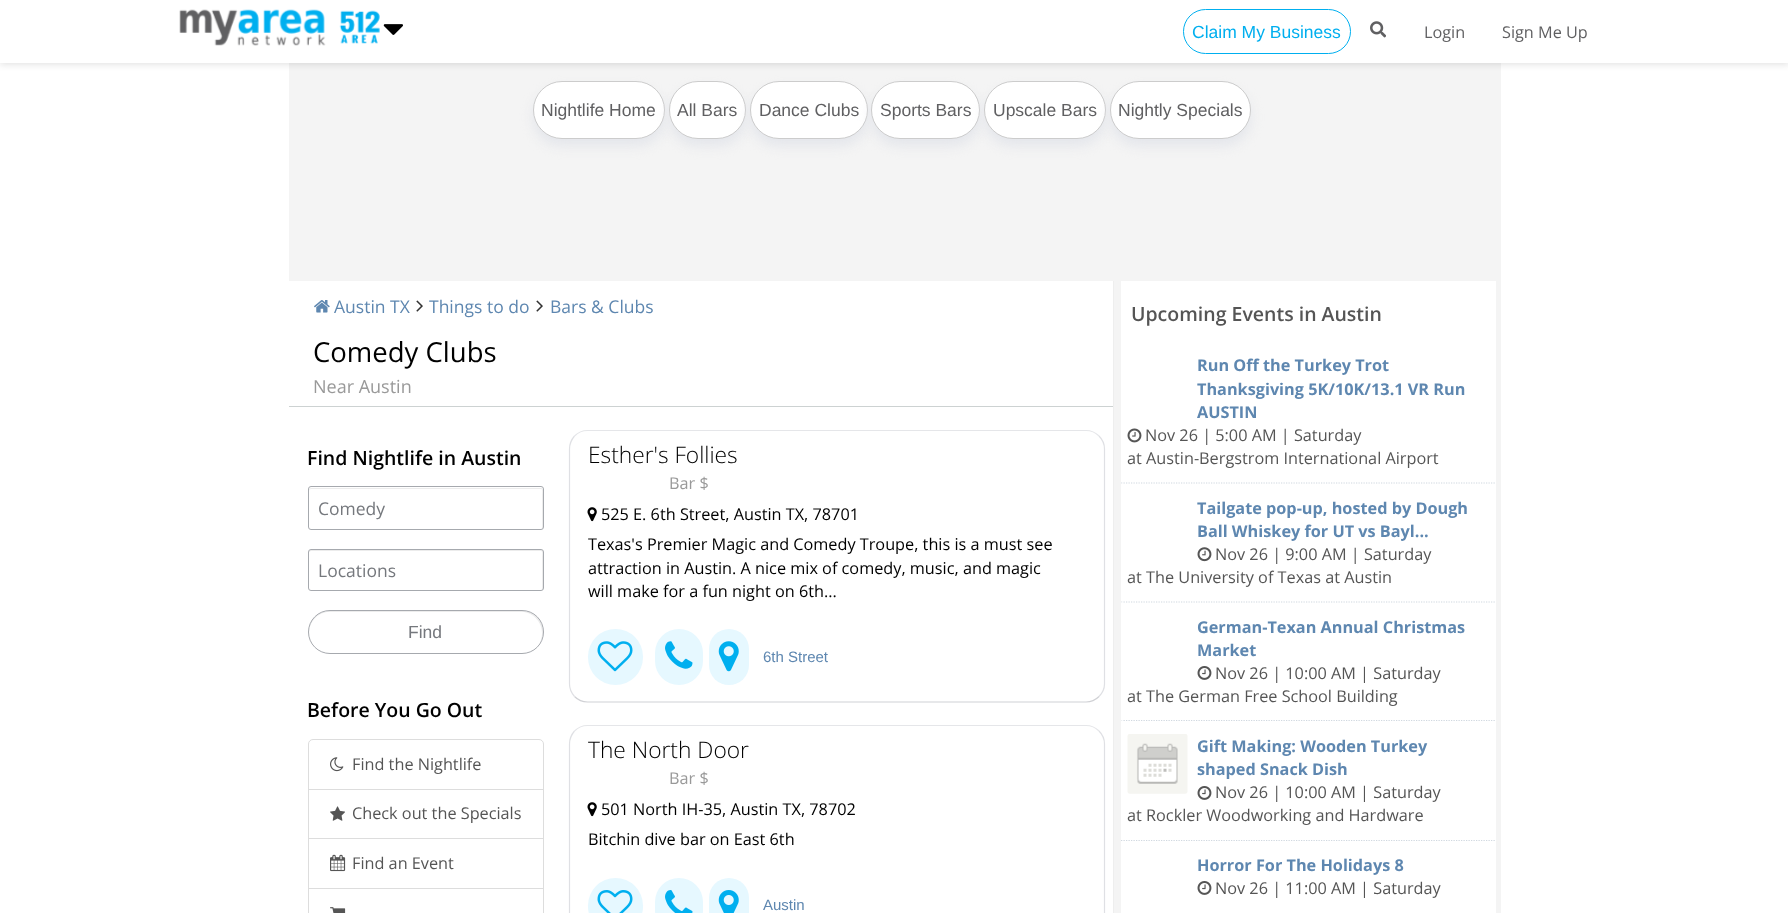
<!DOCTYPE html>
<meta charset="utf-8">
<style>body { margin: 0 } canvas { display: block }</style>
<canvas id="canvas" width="1788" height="913"></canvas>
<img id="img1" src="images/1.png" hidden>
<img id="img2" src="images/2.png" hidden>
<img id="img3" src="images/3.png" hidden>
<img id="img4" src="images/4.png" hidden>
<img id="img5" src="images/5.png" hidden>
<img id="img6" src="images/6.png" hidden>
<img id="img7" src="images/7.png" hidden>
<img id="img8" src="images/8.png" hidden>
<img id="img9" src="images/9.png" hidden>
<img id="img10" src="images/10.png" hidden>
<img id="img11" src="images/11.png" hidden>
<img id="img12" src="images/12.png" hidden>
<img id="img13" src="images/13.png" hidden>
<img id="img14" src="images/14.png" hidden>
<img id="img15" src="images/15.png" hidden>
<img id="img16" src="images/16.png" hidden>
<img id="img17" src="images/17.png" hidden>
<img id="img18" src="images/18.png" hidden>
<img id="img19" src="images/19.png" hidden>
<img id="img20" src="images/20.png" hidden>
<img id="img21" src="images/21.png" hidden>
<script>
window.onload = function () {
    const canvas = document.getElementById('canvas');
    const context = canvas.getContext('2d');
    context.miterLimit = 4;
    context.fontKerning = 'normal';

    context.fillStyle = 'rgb(255, 255, 255)';
    context.fillRect(0, 0, 1788, 913);
    context.fillStyle = 'rgb(244, 244, 244)';
    context.fillRect(289, 63, 1212, 850);
    context.fillStyle = 'rgba(0, 0, 0, 0.1)';
    context.filter = 'blur(3px)';
    context.beginPath();
    context.rect(0, 3, 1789, 62);
    context.fill();
    context.filter = 'none';
    context.fillStyle = 'rgb(255, 255, 255)';
    context.fillRect(0, 0, 1788, 63);
    context.drawImage(document.getElementById('img1'), 179, 9, 147, 37);
    context.drawImage(document.getElementById('img2'), 339, 10, 41, 34);
    context.drawImage(document.getElementById('img3'), 383, 24, 20, 11);
    context.beginPath();
    context.roundRect(1183.5, 9.5, 167, 44, 22);
    context.strokeStyle = 'rgb(0, 175, 239)';
    context.stroke();
    context.drawImage(document.getElementById('img4'), 1370, 21, 16, 17);
    context.fillStyle = 'rgb(228, 230, 235)';
    context.filter = 'blur(6px)';
    context.beginPath();
    context.roundRect(533, 89, 132, 57, 28.5);
    context.fill();
    context.filter = 'none';
    context.fillStyle = 'rgb(255, 255, 255)';
    context.beginPath();
    context.roundRect(533.5, 81.5, 131, 57, 28.5);
    context.fill();
    context.strokeStyle = 'rgb(204, 204, 204)';
    context.stroke();
    context.fillStyle = 'rgb(228, 230, 235)';
    context.filter = 'blur(6px)';
    context.beginPath();
    context.roundRect(669, 89, 77, 57, 28.5);
    context.fill();
    context.filter = 'none';
    context.fillStyle = 'rgb(255, 255, 255)';
    context.beginPath();
    context.roundRect(669.5, 81.5, 76, 57, 28.5);
    context.fill();
    context.stroke();
    context.fillStyle = 'rgb(228, 230, 235)';
    context.filter = 'blur(6px)';
    context.beginPath();
    context.roundRect(750, 89, 118, 57, 28.5);
    context.fill();
    context.filter = 'none';
    context.fillStyle = 'rgb(255, 255, 255)';
    context.beginPath();
    context.roundRect(750.5, 81.5, 117, 57, 28.5);
    context.fill();
    context.stroke();
    context.fillStyle = 'rgb(228, 230, 235)';
    context.filter = 'blur(6px)';
    context.beginPath();
    context.roundRect(871, 89, 109, 57, 28.5);
    context.fill();
    context.filter = 'none';
    context.fillStyle = 'rgb(255, 255, 255)';
    context.beginPath();
    context.roundRect(871.5, 81.5, 108, 57, 28.5);
    context.fill();
    context.stroke();
    context.fillStyle = 'rgb(228, 230, 235)';
    context.filter = 'blur(6px)';
    context.beginPath();
    context.roundRect(984, 89, 122, 57, 28.5);
    context.fill();
    context.filter = 'none';
    context.fillStyle = 'rgb(255, 255, 255)';
    context.beginPath();
    context.roundRect(984.5, 81.5, 121, 57, 28.5);
    context.fill();
    context.stroke();
    context.fillStyle = 'rgb(228, 230, 235)';
    context.filter = 'blur(6px)';
    context.beginPath();
    context.roundRect(1110, 89, 141, 57, 28.5);
    context.fill();
    context.filter = 'none';
    context.fillStyle = 'rgb(255, 255, 255)';
    context.beginPath();
    context.roundRect(1110.5, 81.5, 140, 57, 28.5);
    context.fill();
    context.stroke();
    context.fillRect(289, 281, 824, 632);
    context.fillStyle = 'rgb(238, 238, 238)';
    context.fillRect(1113, 281, 1, 632);
    context.fillStyle = 'rgb(205, 210, 210)';
    context.fillRect(289, 406, 824, 1);
    context.drawImage(document.getElementById('img5'), 314, 300, 16, 13);
    context.drawImage(document.getElementById('img6'), 416, 300, 7, 12);
    context.drawImage(document.getElementById('img6'), 536, 300, 7, 12);
    context.fillStyle = 'rgb(236, 236, 236)';
    context.beginPath();
    context.moveTo(311, 489);
    context.lineTo(541, 489);
    context.bezierCurveTo(543, 489, 542, 493, 542, 497);
    context.lineTo(542, 529);
    context.bezierCurveTo(543, 528, 543, 528, 543, 527);
    context.lineTo(543, 490);
    context.bezierCurveTo(543, 489, 542, 488, 541, 488);
    context.lineTo(311, 488);
    context.bezierCurveTo(310, 488, 309, 489, 309, 490);
    context.lineTo(309, 491);
    context.bezierCurveTo(309, 490, 310, 489, 311, 489);
    context.closePath();
    context.fill();
    context.beginPath();
    context.roundRect(308.5, 486.5, 235, 43, 2.5);
    context.strokeStyle = 'rgb(166, 169, 174)';
    context.stroke();
    context.beginPath();
    context.moveTo(311, 551);
    context.lineTo(541, 551);
    context.bezierCurveTo(543, 551, 542, 555, 542, 559);
    context.lineTo(542, 590);
    context.bezierCurveTo(543, 589, 543, 589, 543, 588);
    context.lineTo(543, 552);
    context.bezierCurveTo(543, 551, 542, 550, 541, 550);
    context.lineTo(311, 550);
    context.bezierCurveTo(310, 550, 309, 551, 309, 552);
    context.lineTo(309, 553);
    context.bezierCurveTo(309, 552, 310, 551, 311, 551);
    context.closePath();
    context.fill();
    context.beginPath();
    context.roundRect(308.5, 549.5, 235, 41, 2.5);
    context.stroke();
    context.beginPath();
    context.moveTo(329, 612);
    context.lineTo(522, 612);
    context.bezierCurveTo(533, 612, 542, 622, 542, 633);
    context.bezierCurveTo(542, 637, 541, 641, 539, 645);
    context.bezierCurveTo(541, 641, 543, 637, 543, 632);
    context.bezierCurveTo(543, 620, 534, 611, 522, 611);
    context.lineTo(330, 611);
    context.bezierCurveTo(318, 611, 309, 620, 309, 632);
    context.lineTo(309, 633);
    context.bezierCurveTo(309, 622, 318, 612, 329, 612);
    context.closePath();
    context.fill();
    context.beginPath();
    context.roundRect(308.5, 610.5, 235, 43, 21.5);
    context.stroke();
    context.beginPath();
    context.roundRect(308.5, 739.5, 235, 50, [4.5, 4.5, 0, 0]);
    context.strokeStyle = 'rgb(221, 221, 221)';
    context.stroke();
    context.drawImage(document.getElementById('img7'), 330, 757, 14, 15);
    context.strokeRect(308.5, 789.5, 235, 49);
    context.drawImage(document.getElementById('img8'), 330, 806, 15, 15);
    context.strokeRect(308.5, 838.5, 235, 50);
    context.drawImage(document.getElementById('img9'), 330, 854, 16, 18);
    context.strokeRect(308.5, 888.5, 235, 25);
    context.drawImage(document.getElementById('img10'), 330, 907, 16, 6);
    context.beginPath();
    context.moveTo(574.5, 436);
    context.bezierCurveTo(578, 432.5, 582.5, 430.5, 587.5, 430.5);
    context.lineTo(1086, 430.5);
    context.bezierCurveTo(1091, 430.5, 1095.5, 432.5, 1099, 436);
    context.strokeStyle = 'rgb(229, 230, 233)';
    context.lineWidth = 1.2;
    context.stroke();
    context.beginPath();
    context.moveTo(1099, 436);
    context.bezierCurveTo(1102.5, 439.5, 1104.5, 444, 1104.5, 449);
    context.lineTo(1104.5, 684);
    context.bezierCurveTo(1104.5, 688.5, 1102.5, 693, 1099, 696.5);
    context.strokeStyle = 'rgb(223, 224, 228)';
    context.stroke();
    context.beginPath();
    context.moveTo(1099, 696.5);
    context.bezierCurveTo(1095.5, 700, 1091, 702, 1086, 702);
    context.lineTo(587.5, 702);
    context.bezierCurveTo(582.5, 702, 578, 700, 574.5, 696.5);
    context.strokeStyle = 'rgb(208, 209, 213)';
    context.stroke();
    context.beginPath();
    context.moveTo(574.5, 696.5);
    context.bezierCurveTo(571.5, 693, 569.5, 688.5, 569.5, 684);
    context.lineTo(569.5, 449);
    context.bezierCurveTo(569.5, 444, 571.5, 439.5, 574.5, 436);
    context.strokeStyle = 'rgb(223, 224, 228)';
    context.stroke();
    context.drawImage(document.getElementById('img11'), 587, 507, 10, 15);
    context.fillStyle = 'rgb(230, 248, 255)';
    context.beginPath();
    context.roundRect(588, 629, 55, 56, 27.5);
    context.fill();
    context.drawImage(document.getElementById('img12'), 597, 641, 36, 31);
    context.beginPath();
    context.roundRect(655, 629, 48, 56, 24);
    context.fill();
    context.drawImage(document.getElementById('img13'), 665, 641, 28, 28);
    context.beginPath();
    context.roundRect(709, 629, 40, 56, 20);
    context.fill();
    context.drawImage(document.getElementById('img14'), 718, 641, 21, 31);
    context.beginPath();
    context.moveTo(574.5, 731);
    context.bezierCurveTo(578, 727.5, 582.5, 725.5, 587.5, 725.5);
    context.lineTo(1086, 725.5);
    context.bezierCurveTo(1091, 725.5, 1095.5, 727.5, 1099, 731);
    context.strokeStyle = 'rgb(229, 230, 233)';
    context.stroke();
    context.beginPath();
    context.moveTo(1099, 731);
    context.bezierCurveTo(1102.5, 734.5, 1104.5, 739, 1104.5, 744);
    context.lineTo(1104.5, 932.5);
    context.bezierCurveTo(1104.5, 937.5, 1102.5, 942, 1099, 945.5);
    context.strokeStyle = 'rgb(223, 224, 228)';
    context.stroke();
    context.beginPath();
    context.moveTo(574.5, 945.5);
    context.bezierCurveTo(571.5, 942, 569.5, 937.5, 569.5, 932.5);
    context.lineTo(569.5, 744);
    context.bezierCurveTo(569.5, 739, 571.5, 734.5, 574.5, 731);
    context.stroke();
    context.drawImage(document.getElementById('img11'), 587, 802, 10, 15);
    context.beginPath();
    context.roundRect(588, 878, 55, 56, 27.5);
    context.fill();
    context.drawImage(document.getElementById('img15'), 597, 890, 36, 23);
    context.beginPath();
    context.roundRect(655, 878, 48, 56, 24);
    context.fill();
    context.drawImage(document.getElementById('img16'), 665, 890, 28, 23);
    context.beginPath();
    context.roundRect(709, 878, 40, 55, 20);
    context.fill();
    context.drawImage(document.getElementById('img17'), 718, 890, 21, 23);
    context.fillStyle = 'rgb(255, 255, 255)';
    context.fillRect(1121, 281, 375, 632);
    context.beginPath();
    context.moveTo(1121, 483);
    context.lineTo(1496, 483);
    context.strokeStyle = 'rgb(208, 216, 224)';
    context.setLineDash([1.25, 1.25]);
    context.stroke();
    context.beginPath();
    context.moveTo(1122, 341);
    context.lineTo(1122, 484);
    context.strokeStyle = 'rgb(255, 255, 255)';
    context.stroke();
    context.drawImage(document.getElementById('img18'), 1127, 428, 15, 15);
    context.beginPath();
    context.moveTo(1121, 602);
    context.lineTo(1496, 602);
    context.strokeStyle = 'rgb(208, 216, 224)';
    context.stroke();
    context.beginPath();
    context.moveTo(1122, 484);
    context.lineTo(1122, 602.5);
    context.strokeStyle = 'rgb(255, 255, 255)';
    context.stroke();
    context.drawImage(document.getElementById('img19'), 1197, 547, 15, 15);
    context.beginPath();
    context.moveTo(1121, 720.5);
    context.lineTo(1496, 720.5);
    context.strokeStyle = 'rgb(208, 216, 224)';
    context.stroke();
    context.beginPath();
    context.moveTo(1122, 602.5);
    context.lineTo(1122, 721);
    context.strokeStyle = 'rgb(255, 255, 255)';
    context.stroke();
    context.drawImage(document.getElementById('img20'), 1197, 666, 15, 14);
    context.beginPath();
    context.moveTo(1121, 840.5);
    context.lineTo(1496, 840.5);
    context.strokeStyle = 'rgb(208, 216, 224)';
    context.stroke();
    context.beginPath();
    context.moveTo(1122, 721);
    context.lineTo(1122, 841);
    context.strokeStyle = 'rgb(255, 255, 255)';
    context.stroke();
    context.drawImage(document.getElementById('img21'), 1127, 734, 61, 60);
    context.drawImage(document.getElementById('img20'), 1197, 786, 15, 14);
    context.beginPath();
    context.moveTo(1122, 841);
    context.lineTo(1122, 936);
    context.stroke();
    context.drawImage(document.getElementById('img20'), 1197, 881, 15, 14);
    context.font = '17.5px Liberation Sans';
    context.fillStyle = 'rgb(0, 175, 239)';
    context.fillText('Claim My Business', 1192, 38);
    context.font = '16.25px Open Sans';
    context.fillStyle = 'rgb(96, 96, 98)';
    context.fillText('Login', 1424, 38);
    context.fillText('Sign Me Up', 1502, 38);
    context.font = '17.5px Liberation Sans';
    context.fillText('Nightlife Home', 541, 116);
    context.fillText('All Bars', 677, 116);
    context.fillText('Dance Clubs', 759, 116);
    context.fillText('Sports Bars', 880, 116);
    context.fillText('Upscale Bars', 993, 116);
    context.fillText('Nightly Specials', 1118, 116);
    context.font = '17.5px Open Sans';
    context.fillStyle = 'rgb(94, 135, 176)';
    context.fillText('Austin TX', 334, 313);
    context.fillText('Things to do', 429, 313);
    context.fillText('Bars & Clubs', 550, 313);
    context.font = '27.5px Open Sans';
    context.fillStyle = 'rgb(0, 0, 0)';
    context.fillText('Comedy Clubs', 313, 362);
    context.font = '18px Open Sans';
    context.fillStyle = 'rgb(153, 153, 153)';
    context.fillText('Near Austin', 313, 393);
    context.font = '600 19.5px Open Sans';
    context.fillStyle = 'rgb(0, 0, 0)';
    context.fillText('Find Nightlife in Austin', 307, 465);
    context.font = '17.5px Open Sans';
    context.fillStyle = 'rgb(117, 120, 125)';
    context.fillText('Comedy', 318, 515);
    context.fillText('Locations', 318, 577);
    context.font = '17.5px Liberation Sans';
    context.fillText('Find', 408, 638);
    context.font = '600 19.5px Open Sans';
    context.fillStyle = 'rgb(0, 0, 0)';
    context.fillText('Before You Go Out', 307, 717);
    context.font = '16.25px Open Sans';
    context.fillStyle = 'rgb(85, 85, 85)';
    context.fillText('Find the Nightlife', 352, 770);
    context.fillText('Check out the Specials', 352, 819);
    context.fillText('Find an Event', 352, 869);
    context.font = '300 22.75px Open Sans';
    context.fillStyle = 'rgb(0, 0, 0)';
    context.fillText('Esther\'s Follies', 588, 463);
    context.font = '16.25px Open Sans';
    context.fillStyle = 'rgb(153, 153, 153)';
    context.fillText('Bar $', 669, 489);
    context.fillStyle = 'rgb(0, 0, 0)';
    context.fillText('525 E. 6th Street, Austin TX, 78701', 601, 520);
    context.fillText('Texas\'s Premier Magic and Comedy Troupe, this is a must see', 588, 550);
    context.fillText('attraction in Austin. A nice mix of comedy, music, and magic', 588, 574);
    context.fillText('will make for a fun night on 6th...', 588, 597);
    context.font = '15px Liberation Sans';
    context.fillStyle = 'rgb(94, 135, 176)';
    context.fillText('6th Street', 763, 662);
    context.font = '300 22.75px Open Sans';
    context.fillStyle = 'rgb(0, 0, 0)';
    context.fillText('The North Door', 588, 758);
    context.font = '16.25px Open Sans';
    context.fillStyle = 'rgb(153, 153, 153)';
    context.fillText('Bar $', 669, 784);
    context.fillStyle = 'rgb(0, 0, 0)';
    context.fillText('501 North IH-35, Austin TX, 78702', 601, 815);
    context.fillText('Bitchin dive bar on East 6th', 588, 845);
    context.font = '15px Liberation Sans';
    context.fillStyle = 'rgb(94, 135, 176)';
    context.fillText('Austin', 763, 910);
    context.font = '600 19.5px Open Sans';
    context.fillStyle = 'rgb(85, 85, 85)';
    context.fillText('Upcoming Events in Austin', 1131, 321);
    context.font = 'bold 16.25px Open Sans';
    context.fillStyle = 'rgb(94, 135, 176)';
    context.fillText('Run Off the Turkey Trot', 1197, 371);
    context.fillText('Thanksgiving 5K/10K/13.1 VR Run', 1197, 395);
    context.fillText('AUSTIN', 1197, 418);
    context.font = '16.25px Open Sans';
    context.fillStyle = 'rgb(85, 85, 85)';
    context.fillText('Nov 26 | 5:00 AM | Saturday', 1145, 441);
    context.fillText('at Austin-Bergstrom International Airport', 1127, 464);
    context.font = 'bold 16.25px Open Sans';
    context.fillStyle = 'rgb(94, 135, 176)';
    context.fillText('Tailgate pop-up, hosted by Dough', 1197, 514);
    context.fillText('Ball Whiskey for UT vs Bayl...', 1197, 537);
    context.font = '16.25px Open Sans';
    context.fillStyle = 'rgb(85, 85, 85)';
    context.fillText('Nov 26 | 9:00 AM | Saturday', 1215, 560);
    context.fillText('at The University of Texas at Austin', 1127, 583);
    context.font = 'bold 16.25px Open Sans';
    context.fillStyle = 'rgb(94, 135, 176)';
    context.fillText('German-Texan Annual Christmas', 1197, 633);
    context.fillText('Market', 1197, 656);
    context.font = '16.25px Open Sans';
    context.fillStyle = 'rgb(85, 85, 85)';
    context.fillText('Nov 26 | 10:00 AM | Saturday', 1215, 679);
    context.fillText('at The German Free School Building', 1127, 702);
    context.font = 'bold 16.25px Open Sans';
    context.fillStyle = 'rgb(94, 135, 176)';
    context.fillText('Gift Making: Wooden Turkey', 1197, 752);
    context.fillText('shaped Snack Dish', 1197, 775);
    context.font = '16.25px Open Sans';
    context.fillStyle = 'rgb(85, 85, 85)';
    context.fillText('Nov 26 | 10:00 AM | Saturday', 1215, 798);
    context.fillText('at Rockler Woodworking and Hardware', 1127, 821);
    context.font = 'bold 16.25px Open Sans';
    context.fillStyle = 'rgb(94, 135, 176)';
    context.fillText('Horror For The Holidays 8', 1197, 871);
    context.font = '16.25px Open Sans';
    context.fillStyle = 'rgb(85, 85, 85)';
    context.fillText('Nov 26 | 11:00 AM | Saturday', 1215, 894);
};
</script>
